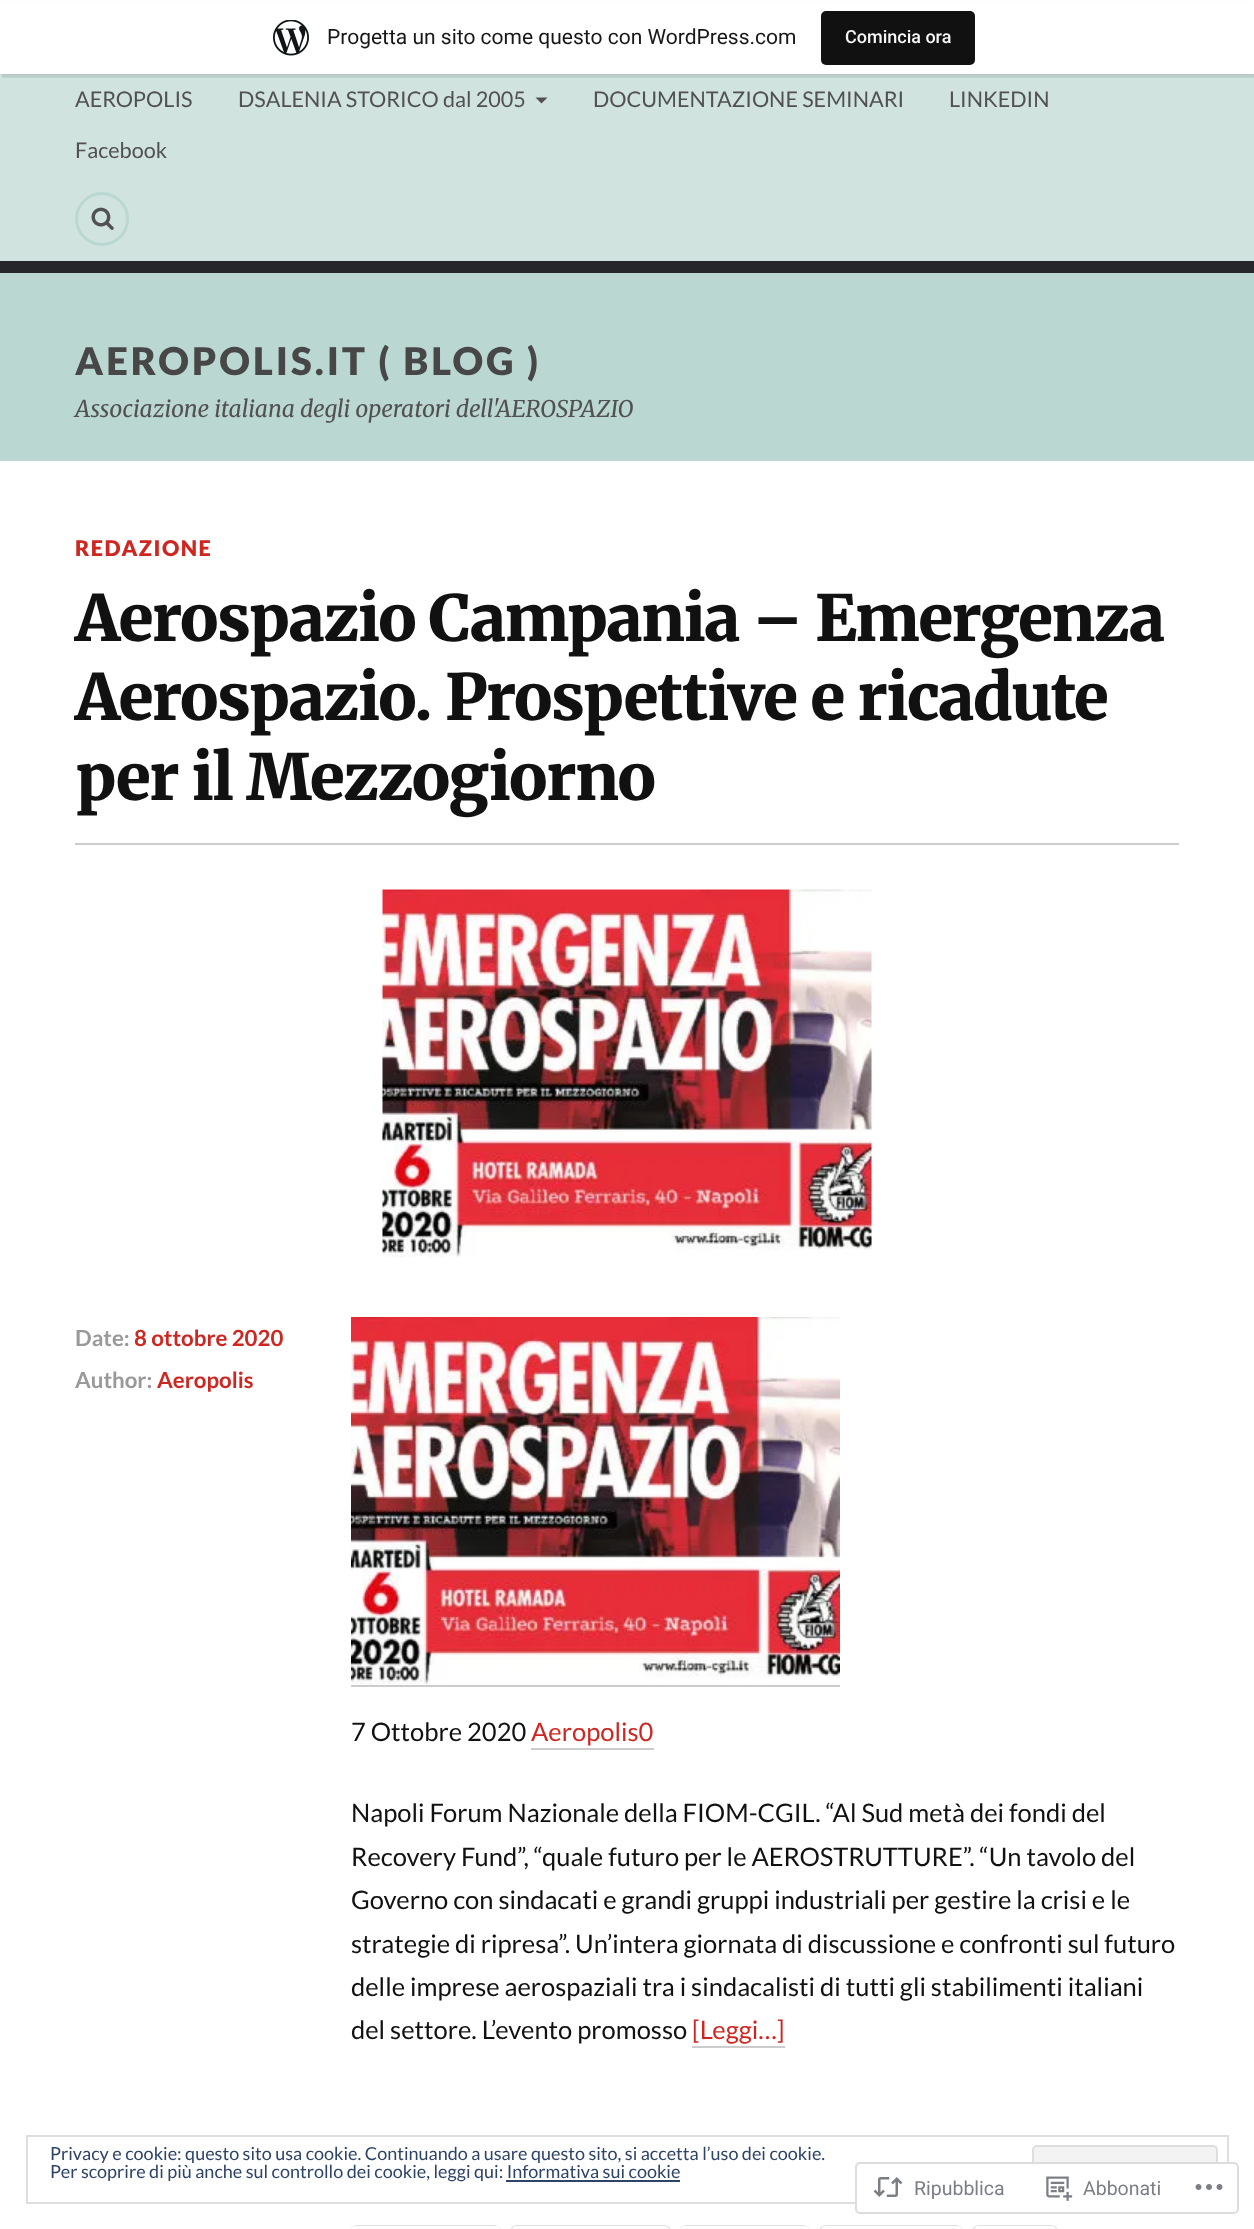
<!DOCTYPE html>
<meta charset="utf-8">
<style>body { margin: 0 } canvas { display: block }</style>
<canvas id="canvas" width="1254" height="2229"></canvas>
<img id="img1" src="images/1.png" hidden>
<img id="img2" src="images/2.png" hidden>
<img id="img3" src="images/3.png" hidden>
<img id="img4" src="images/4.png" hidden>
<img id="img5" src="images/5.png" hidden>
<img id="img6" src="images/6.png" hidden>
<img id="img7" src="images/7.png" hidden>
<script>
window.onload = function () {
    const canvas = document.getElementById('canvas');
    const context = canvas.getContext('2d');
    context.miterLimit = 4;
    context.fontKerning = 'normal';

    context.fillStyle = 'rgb(255, 255, 255)';
    context.fillRect(0, 0, 1254, 2229);
    context.fillStyle = 'rgb(208, 227, 223)';
    context.fillRect(0, 74, 1254, 187);
    context.fillStyle = 'rgba(0, 0, 0, 0.05)';
    context.filter = 'blur(1.5px)';
    context.beginPath();
    context.rect(0, 2, 1254, 73);
    context.fill();
    context.filter = 'none';
    context.fillStyle = 'rgba(0, 0, 0, 0.08)';
    context.beginPath();
    context.moveTo(2, 74);
    context.lineTo(2, 78);
    context.lineTo(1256, 78);
    context.lineTo(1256, 5);
    context.lineTo(1254, 5);
    context.lineTo(1254, 74);
    context.closePath();
    context.fill();
    context.fillStyle = 'rgb(255, 255, 255)';
    context.fillRect(0, 1, 1254, 73);
    context.drawImage(document.getElementById('img1'), 273, 20, 36, 36);
    context.fillStyle = 'rgb(17, 17, 17)';
    context.beginPath();
    context.roundRect(821, 11, 154, 54, 5);
    context.fill();
    context.fillStyle = 'rgb(81, 81, 81)';
    context.beginPath();
    context.moveTo(535.5, 97.5);
    context.lineTo(547.5, 97.5);
    context.lineTo(541.5, 103.5);
    context.closePath();
    context.fill();
    context.beginPath();
    context.arc(102, 219, 25.5, 0, 2 * Math.PI);
    context.strokeStyle = 'rgb(187, 215, 209)';
    context.lineWidth = 3;
    context.stroke();
    context.drawImage(document.getElementById('img2'), 91, 207, 23, 23);
    context.fillStyle = 'rgb(187, 215, 209)';
    context.fillRect(0, 273, 1254, 188);
    context.fillStyle = 'rgb(38, 39, 43)';
    context.fillRect(0, 261, 1254, 12);
    context.fillStyle = 'rgb(204, 204, 204)';
    context.fillRect(75, 843, 1104, 2);
    context.drawImage(document.getElementById('img3'), 382, 889, 490, 368);
    context.fillRect(351, 1685, 489, 2);
    context.drawImage(document.getElementById('img4'), 351, 1317, 489, 368);
    context.fillRect(531, 1748, 123, 2);
    context.fillRect(692, 2046, 93, 2);
    context.beginPath();
    context.roundRect(351, 2226, 149, 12, 7);
    context.strokeStyle = 'rgb(224, 224, 224)';
    context.lineWidth = 2;
    context.stroke();
    context.fillStyle = 'rgb(255, 255, 255)';
    context.beginPath();
    context.roundRect(351, 2226, 149, 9, 6);
    context.fill();
    context.beginPath();
    context.roundRect(511, 2226, 159, 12, 7);
    context.stroke();
    context.beginPath();
    context.roundRect(512, 2226, 157, 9, 6);
    context.fill();
    context.beginPath();
    context.roundRect(681, 2226, 128, 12, 7);
    context.stroke();
    context.beginPath();
    context.roundRect(681, 2226, 128, 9, 6);
    context.fill();
    context.beginPath();
    context.roundRect(820, 2226, 142, 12, 7);
    context.stroke();
    context.beginPath();
    context.roundRect(821, 2226, 141, 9, 6);
    context.fill();
    context.beginPath();
    context.roundRect(973, 2226, 84, 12, 7);
    context.stroke();
    context.beginPath();
    context.roundRect(974, 2226, 82, 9, 6);
    context.fill();
    context.strokeStyle = 'rgb(222, 222, 222)';
    context.strokeRect(27, 2136, 1201, 67);
    context.fillStyle = 'rgb(243, 243, 243)';
    context.beginPath();
    context.roundRect(1033, 2146, 184, 46, 4);
    context.fill();
    context.stroke();
    context.fillStyle = 'rgb(46, 68, 103)';
    context.fillRect(506, 2180, 174, 2);
    context.fillStyle = 'rgba(255, 255, 255, 0.98)';
    context.beginPath();
    context.roundRect(855, 2162, 384, 52, 5);
    context.fill();
    context.beginPath();
    context.roundRect(856, 2163, 382, 50, 4);
    context.strokeStyle = 'rgba(220, 220, 222, 0.98)';
    context.stroke();
    context.drawImage(document.getElementById('img5'), 873, 2177, 30, 20);
    context.drawImage(document.getElementById('img6'), 1046, 2176, 27, 25);
    context.drawImage(document.getElementById('img7'), 1195, 2184, 28, 6);
    context.font = '21px Roboto';
    context.fillStyle = 'rgb(23, 23, 23)';
    context.fillText('Progetta un sito come questo con WordPress.com', 327, 44);
    context.font = '500 18px Roboto';
    context.fillStyle = 'rgb(246, 247, 247)';
    context.fillText('Comincia ora', 845, 43);
    context.font = '21.6px Lato';
    context.fillStyle = 'rgb(81, 81, 81)';
    context.fillText('AEROPOLIS', 75, 107);
    context.fillText('DSALENIA STORICO dal 2005', 238, 107);
    context.fillText('DOCUMENTAZIONE SEMINARI', 593, 107);
    context.fillText('LINKEDIN', 949, 107);
    context.fillText('Facebook', 75, 158);
    context.letterSpacing = '3px';
    context.font = '900 38.25px Lato';
    context.fillStyle = 'rgb(71, 71, 71)';
    context.fillText('AEROPOLIS.IT ( BLOG )', 75, 375);
    context.letterSpacing = '0px';
    context.font = 'italic 300 22.95px Merriweather';
    context.fillStyle = 'rgb(81, 81, 81)';
    context.fillText('Associazione italiana degli operatori dell\'AEROSPAZIO', 75, 417);
    context.letterSpacing = '1.5px';
    context.font = '900 21.6px Lato';
    context.fillStyle = 'rgb(206, 39, 33)';
    context.fillText('REDAZIONE', 75, 556);
    context.letterSpacing = '-1.5px';
    context.font = '900 63.75px Merriweather';
    context.fillStyle = 'rgb(17, 17, 17)';
    context.fillText('Aerospazio Campania – Emergenza', 75, 641);
    context.fillText('Aerospazio. Prospettive e ricadute', 75, 720);
    context.fillText('per il Mezzogiorno', 75, 800);
    context.letterSpacing = '0px';
    context.font = 'bold 22.25px Lato';
    context.fillStyle = 'rgb(153, 153, 153)';
    context.fillText('Date:', 75, 1346);
    context.fillStyle = 'rgb(206, 39, 33)';
    context.fillText('8 ottobre 2020', 134, 1346);
    context.fillStyle = 'rgb(153, 153, 153)';
    context.fillText('Author:', 75, 1388);
    context.fillStyle = 'rgb(206, 39, 33)';
    context.fillText('Aeropolis', 157, 1388);
    context.font = '25.5px Lato';
    context.fillStyle = 'rgb(17, 17, 17)';
    context.fillText('7 Ottobre 2020', 351, 1741);
    context.fillStyle = 'rgb(206, 39, 33)';
    context.fillText('Aeropolis0', 531, 1741);
    context.fillStyle = 'rgb(17, 17, 17)';
    context.fillText('Napoli Forum Nazionale della FIOM-CGIL. “Al Sud metà dei fondi del', 351, 1822);
    context.fillText('Recovery Fund”, “quale futuro per le AEROSTRUTTURE”. “Un tavolo del', 351, 1866);
    context.fillText('Governo con sindacati e grandi gruppi industriali per gestire la crisi e le', 351, 1909);
    context.fillText('strategie di ripresa”. Un’intera giornata di discussione e confronti sul futuro', 351, 1953);
    context.fillText('delle imprese aerospaziali tra i sindacalisti di tutti gli stabilimenti italiani', 351, 1996);
    context.fillText('del settore. L’evento promosso', 351, 2039);
    context.fillStyle = 'rgb(206, 39, 33)';
    context.fillText('[Leggi…]', 692, 2039);
    context.font = '18px Lato';
    context.fillStyle = 'rgb(46, 68, 103)';
    context.fillText('Privacy e cookie: questo sito usa cookie. Continuando a usare questo sito, si accetta l’uso dei cookie.', 50, 2160);
    context.fillText('Per scoprire di più anche sul controllo dei cookie, leggi qui: Informativa sui cookie', 50, 2178);
    context.font = '19.5px Roboto';
    context.fillStyle = 'rgb(123, 127, 133)';
    context.fillText('Ripubblica', 914, 2195);
    context.fillText('Abbonati', 1083, 2195);
};
</script>
